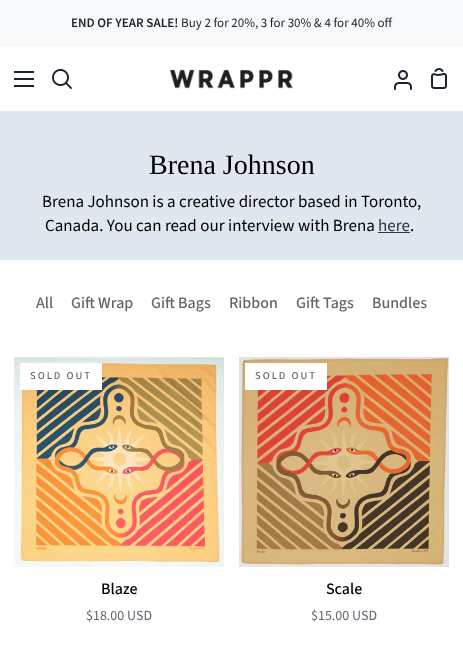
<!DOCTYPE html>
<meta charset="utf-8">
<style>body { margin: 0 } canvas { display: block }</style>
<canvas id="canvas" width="463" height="656"></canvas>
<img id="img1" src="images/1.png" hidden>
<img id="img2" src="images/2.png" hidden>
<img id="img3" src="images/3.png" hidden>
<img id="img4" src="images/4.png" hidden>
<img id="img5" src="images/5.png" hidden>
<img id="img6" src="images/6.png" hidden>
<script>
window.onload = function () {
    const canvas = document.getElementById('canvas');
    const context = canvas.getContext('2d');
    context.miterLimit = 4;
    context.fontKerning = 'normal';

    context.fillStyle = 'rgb(255, 255, 255)';
    context.fillRect(0, 0, 463, 656);
    context.fillStyle = 'rgb(247, 249, 251)';
    context.fillRect(0, 0, 463, 47);
    context.fillStyle = 'rgb(28, 35, 48)';
    context.fillRect(14, 71, 20, 2);
    context.fillRect(14, 78, 20, 2);
    context.fillRect(14, 85, 20, 2);
    context.drawImage(document.getElementById('img1'), 52, 69, 20, 20);
    context.drawImage(document.getElementById('img2'), 169, 69, 124, 20);
    context.drawImage(document.getElementById('img3'), 394, 70, 18, 20);
    context.drawImage(document.getElementById('img4'), 431, 68, 16, 21);
    context.fillStyle = 'rgb(225, 231, 238)';
    context.fillRect(0, 111, 463, 149);
    context.fillStyle = 'rgb(47, 53, 64)';
    context.fillRect(378, 232, 32, 1);
    context.drawImage(document.getElementById('img5'), 14, 357, 210, 210);
    context.fillStyle = 'rgb(255, 255, 255)';
    context.fillRect(20, 363, 82, 27);
    context.drawImage(document.getElementById('img6'), 239, 357, 210, 210);
    context.fillRect(245, 363, 82, 27);
    context.font = '600 13px Source Sans Pro';
    context.fillStyle = 'rgb(28, 35, 48)';
    context.fillText('END OF YEAR SALE!', 71, 27);
    context.font = '13px Source Sans Pro';
    context.fillText('Buy 2 for 20%, 3 for 30% & 4 for 40% off', 181, 27);
    context.font = '28px Liberation Serif';
    context.fillStyle = 'rgb(0, 0, 0)';
    context.fillText('Brena Johnson', 149, 174);
    context.font = '17px Source Sans Pro';
    context.fillText('Brena Johnson is a creative director based in Toronto,', 42, 207);
    context.fillText('Canada. You can read our interview with Brena', 45, 231);
    context.fillStyle = 'rgb(47, 53, 64)';
    context.fillText('here', 378, 231);
    context.fillStyle = 'rgb(0, 0, 0)';
    context.fillText('.', 410, 231);
    context.font = '500 16px Source Sans Pro';
    context.fillStyle = 'rgb(96, 101, 110)';
    context.fillText('All', 36, 308);
    context.fillText('Gift Wrap', 71, 308);
    context.fillText('Gift Bags', 151, 308);
    context.fillText('Ribbon', 229, 308);
    context.fillText('Gift Tags', 296, 308);
    context.fillText('Bundles', 372, 308);
    context.letterSpacing = '2px';
    context.font = '500 10.5px Source Sans Pro';
    context.fillStyle = 'rgb(101, 101, 101)';
    context.fillText('SOLD OUT', 30, 379);
    context.letterSpacing = '0px';
    context.font = '500 16px Source Sans Pro';
    context.fillStyle = 'rgb(0, 0, 0)';
    context.fillText('Blaze', 101, 594);
    context.font = '14px Source Sans Pro';
    context.fillStyle = 'rgb(96, 101, 110)';
    context.fillText('$18.00 USD', 86, 620);
    context.letterSpacing = '2px';
    context.font = '500 10.5px Source Sans Pro';
    context.fillStyle = 'rgb(101, 101, 101)';
    context.fillText('SOLD OUT', 255, 379);
    context.letterSpacing = '0px';
    context.font = '500 16px Source Sans Pro';
    context.fillStyle = 'rgb(0, 0, 0)';
    context.fillText('Scale', 326, 594);
    context.font = '14px Source Sans Pro';
    context.fillStyle = 'rgb(96, 101, 110)';
    context.fillText('$15.00 USD', 311, 620);
};
</script>
